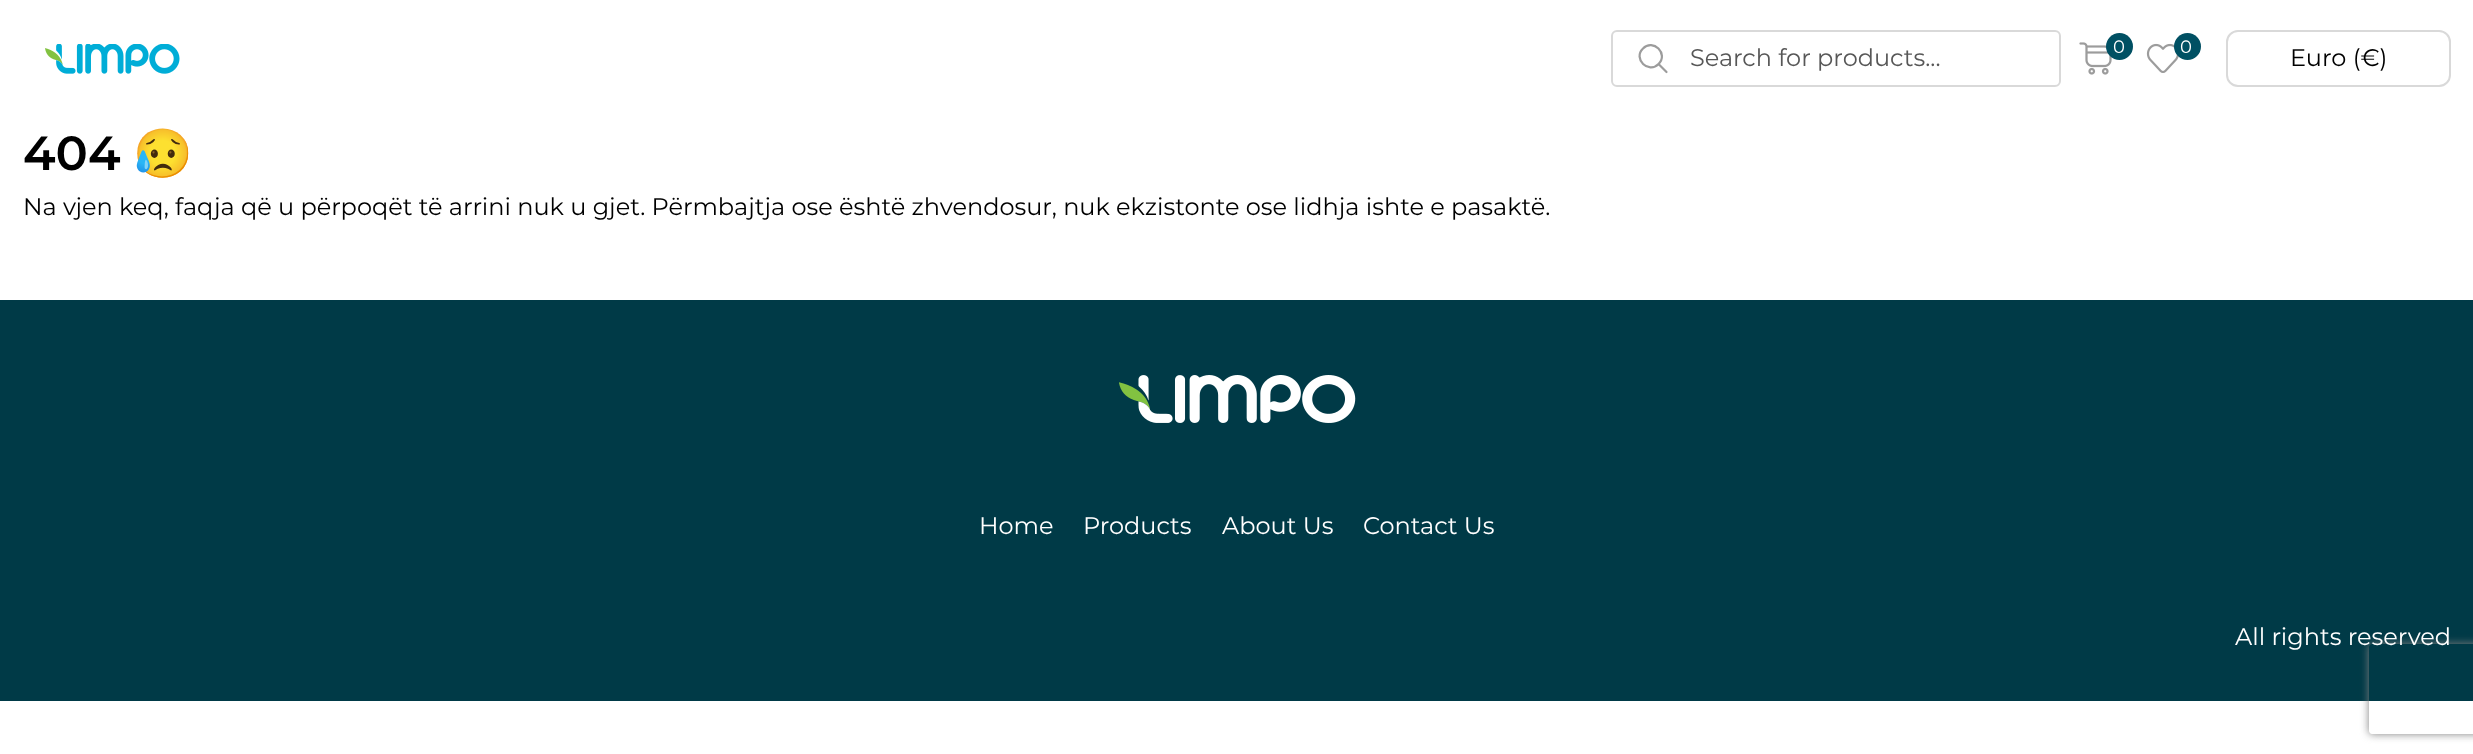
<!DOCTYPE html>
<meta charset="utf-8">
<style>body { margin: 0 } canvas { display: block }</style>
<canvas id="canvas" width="2473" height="754"></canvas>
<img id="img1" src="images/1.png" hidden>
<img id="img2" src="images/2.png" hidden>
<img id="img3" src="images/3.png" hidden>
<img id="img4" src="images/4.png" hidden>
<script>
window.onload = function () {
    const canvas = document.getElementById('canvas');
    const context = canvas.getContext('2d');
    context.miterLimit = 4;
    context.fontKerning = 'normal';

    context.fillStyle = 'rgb(255, 255, 255)';
    context.fillRect(0, 0, 2473, 754);
    context.drawImage(document.getElementById('img1'), 45, 44, 135, 30);
    context.beginPath();
    context.roundRect(1612, 31, 448, 55, 5);
    context.strokeStyle = 'rgb(217, 217, 217)';
    context.lineWidth = 2;
    context.stroke();
    context.beginPath();
    context.moveTo(1666.5, 72);
    context.lineTo(1658.5, 64);
    context.moveTo(1658.5, 64);
    context.bezierCurveTo(1669, 54, 1653, 38, 1643, 48.5);
    context.bezierCurveTo(1632.5, 58.5, 1648.5, 74.5, 1658.5, 64);
    context.closePath();
    context.strokeStyle = 'rgb(156, 156, 156)';
    context.lineWidth = 2.2;
    context.lineCap = 'round';
    context.lineJoin = 'round';
    context.stroke();
    context.drawImage(document.getElementById('img2'), 2079, 42, 33, 33);
    context.fillStyle = 'rgb(0, 80, 99)';
    context.beginPath();
    context.arc(2119.5, 46.5, 13.5, 0, 2 * Math.PI);
    context.fill();
    context.drawImage(document.getElementById('img3'), 2146, 43, 33, 30);
    context.beginPath();
    context.arc(2187.5, 46.5, 13.5, 0, 2 * Math.PI);
    context.fill();
    context.beginPath();
    context.roundRect(2227, 31, 223, 55, 11);
    context.strokeStyle = 'rgb(217, 217, 217)';
    context.lineWidth = 2;
    context.lineJoin = 'miter';
    context.stroke();
    context.fillStyle = 'rgb(0, 58, 71)';
    context.fillRect(0, 300, 2473, 401);
    context.drawImage(document.getElementById('img4'), 1119, 375, 237, 48);
    context.save();
    context.beginPath();
    context.moveTo(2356, 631);
    context.lineTo(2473, 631);
    context.lineTo(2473, 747);
    context.lineTo(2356, 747);
    context.closePath();
    context.moveTo(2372, 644);
    context.lineTo(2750, 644);
    context.bezierCurveTo(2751.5, 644, 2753, 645.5, 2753, 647);
    context.lineTo(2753, 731);
    context.bezierCurveTo(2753, 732.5, 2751.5, 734, 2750, 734);
    context.lineTo(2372, 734);
    context.bezierCurveTo(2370.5, 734, 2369, 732.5, 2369, 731);
    context.lineTo(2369, 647);
    context.bezierCurveTo(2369, 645.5, 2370.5, 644, 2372, 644);
    context.closePath();
    context.clip('evenodd');
    context.fillStyle = 'rgb(128, 128, 128)';
    context.filter = 'blur(4px)';
    context.beginPath();
    context.roundRect(2369, 644, 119, 90, 3);
    context.fill();
    context.filter = 'none';
    context.restore();
    context.font = '24px Montserrat';
    context.fillStyle = 'rgb(87, 87, 87)';
    context.fillText('Search for products...', 1690, 66);
    context.font = '18px Montserrat';
    context.fillStyle = 'rgb(255, 255, 255)';
    context.fillText('0', 2113, 53);
    context.fillText('0', 2180, 53);
    context.font = '24px Montserrat';
    context.fillStyle = 'rgb(0, 0, 0)';
    context.fillText('Euro (€)', 2290, 66);
    context.font = '600 48px Montserrat';
    context.fillText('404', 23, 170);
    context.font = 'bold 48px Noto Color Emoji';
    context.fillText('😥', 133, 170);
    context.font = '24px Montserrat';
    context.fillText('Na vjen keq, faqja që u përpoqët të arrini nuk u gjet. Përmbajtja ose është zhvendosur, nuk ekzistonte ose lidhja ishte e pasaktë.', 23, 215);
    context.fillStyle = 'rgb(255, 255, 255)';
    context.fillText('Home', 979, 534);
    context.fillText('Products', 1083, 534);
    context.fillText('About Us', 1222, 534);
    context.fillText('Contact Us', 1363, 534);
    context.fillText('All rights reserved', 2235, 645);
};
</script>
